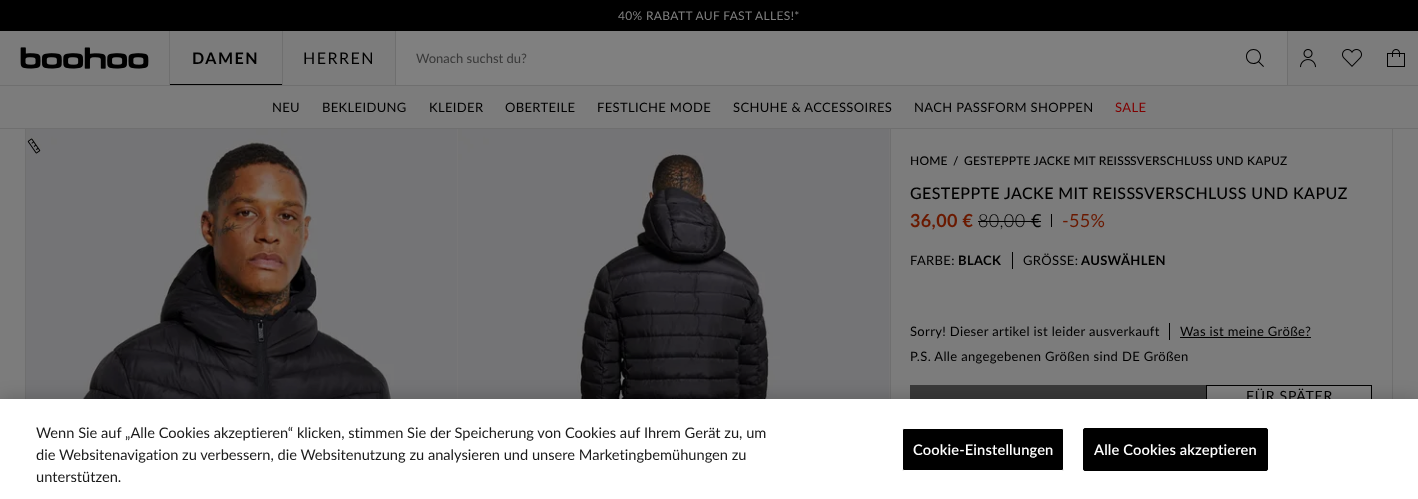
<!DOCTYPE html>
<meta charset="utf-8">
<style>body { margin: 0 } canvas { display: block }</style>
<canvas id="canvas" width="1418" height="499"></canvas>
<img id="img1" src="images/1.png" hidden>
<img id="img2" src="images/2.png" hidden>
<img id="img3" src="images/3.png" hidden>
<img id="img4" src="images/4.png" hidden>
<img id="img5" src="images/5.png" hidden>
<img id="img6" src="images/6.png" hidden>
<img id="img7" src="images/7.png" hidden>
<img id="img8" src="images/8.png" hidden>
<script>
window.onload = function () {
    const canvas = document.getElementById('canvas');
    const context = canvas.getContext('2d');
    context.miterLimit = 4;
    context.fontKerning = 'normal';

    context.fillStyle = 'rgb(124, 124, 124)';
    context.fillRect(0, 0, 1418, 499);
    context.fillStyle = 'rgb(0, 0, 0)';
    context.fillRect(0, 0, 1418, 31);
    context.drawImage(document.getElementById('img1'), 20, 47, 129, 22);
    context.fillStyle = 'rgb(111, 111, 111)';
    context.fillRect(169, 31, 1, 54);
    context.fillStyle = 'rgb(0, 0, 0)';
    context.fillRect(170, 84, 112, 1);
    context.fillStyle = 'rgb(111, 111, 111)';
    context.fillRect(282, 31, 1, 54);
    context.fillRect(0, 85, 1418, 1);
    context.drawImage(document.getElementById('img2'), 1300, 49, 16, 19);
    context.drawImage(document.getElementById('img3'), 1342, 49, 20, 18);
    context.drawImage(document.getElementById('img4'), 1387, 49, 18, 18);
    context.fillStyle = 'rgb(128, 128, 128)';
    context.fillRect(396, 31, 891, 54);
    context.fillStyle = 'rgb(111, 111, 111)';
    context.fillRect(1287, 31, 1, 54);
    context.fillRect(395, 31, 1, 54);
    context.drawImage(document.getElementById('img5'), 1246, 49, 18, 18);
    context.strokeStyle = 'rgb(111, 111, 111)';
    context.strokeRect(25.5, 128.5, 1367, 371);
    context.strokeRect(25.5, 128.5, 865, 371);
    context.drawImage(document.getElementById('img6'), 26, 129, 431, 270);
    context.save();
    context.beginPath();
    context.rect(26, 129, 864, 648);
    context.clip();
    context.strokeStyle = 'rgb(120, 119, 120)';
    context.strokeRect(457.5, 128.5, 433, 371);
    context.restore();
    context.drawImage(document.getElementById('img7'), 458, 129, 431, 270);
    context.fillStyle = 'rgb(0, 0, 0)';
    context.fillRect(1012, 252, 1, 17);
    context.drawImage(document.getElementById('img8'), 27, 138, 14, 16);
    context.fillRect(1180, 337, 131, 1);
    context.fillStyle = 'rgb(57, 57, 57)';
    context.fillRect(910, 385, 296, 14);
    context.letterSpacing = '0.35px';
    context.font = '12px Lato';
    context.fillStyle = 'rgb(128, 128, 128)';
    context.fillText('40% RABATT AUF FAST ALLES!*', 618, 20);
    context.letterSpacing = '1.5px';
    context.font = 'bold 16px Lato';
    context.fillStyle = 'rgb(0, 0, 0)';
    context.fillText('DAMEN', 192, 64);
    context.font = '16px Lato';
    context.fillText('HERREN', 303, 64);
    context.letterSpacing = '0.35px';
    context.font = '13px Lato';
    context.fillText('NEU', 272, 112);
    context.fillText('BEKLEIDUNG', 322, 112);
    context.fillText('KLEIDER', 429, 112);
    context.fillText('OBERTEILE', 505, 112);
    context.fillText('FESTLICHE MODE', 597, 112);
    context.fillText('SCHUHE & ACCESSOIRES', 733, 112);
    context.fillText('NACH PASSFORM SHOPPEN', 914, 112);
    context.fillStyle = 'rgb(128, 0, 0)';
    context.fillText('SALE', 1115, 112);
    context.letterSpacing = '0px';
    context.fillStyle = 'rgb(57, 57, 57)';
    context.fillText('Wonach suchst du?', 416, 63);
    context.letterSpacing = '0.2px';
    context.font = '500 12px Lato';
    context.fillStyle = 'rgb(0, 0, 0)';
    context.fillText('HOME', 910, 165);
    context.fillText('/', 953, 165);
    context.fillText('GESTEPPTE JACKE MIT REISS', 964, 165);
    context.fillText('SVERSCHLUSS UND KAPUZ', 1130, 165);
    context.letterSpacing = '0.4px';
    context.font = '500 16px Lato';
    context.fillText('GESTEPPTE JACKE MIT REISS', 910, 199);
    context.fillText('SVERSCHLUSS UND KAPUZ', 1135, 199);
    context.save();
    context.beginPath();
    context.rect(26, 129, 864, 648);
    context.clip();
    context.strokeStyle = 'rgb(120, 119, 120)';
    context.strokeRect(889.5, 128.5, 433, 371);
    context.restore();
    context.fillStyle = 'rgb(111, 111, 111)';
    context.fillRect(0, 128, 1418, 1);
    context.letterSpacing = '0.35px';
    context.font = 'bold 18px Lato';
    context.fillStyle = 'rgb(106, 25, 0)';
    context.fillText('36,00 €', 910, 227);
    context.font = '300 18px Lato';
    context.fillStyle = 'rgb(0, 0, 0)';
    context.fillText('80,00', 978, 227);
    context.fillRect(978, 221, 63, 1);
    context.font = '18px Noto Sans';
    context.fillText('€', 1031, 227);
    context.fillRect(1051, 214, 1, 13);
    context.font = '18px Lato';
    context.fillStyle = 'rgb(106, 25, 0)';
    context.fillText('-55%', 1062, 227);
    context.font = '13px Lato';
    context.fillStyle = 'rgb(0, 0, 0)';
    context.fillText('FARBE:', 910, 265);
    context.font = 'bold 13px Lato';
    context.fillText('BLACK', 958, 265);
    context.font = '13px Lato';
    context.fillText('GRÖSSE:', 1023, 265);
    context.font = 'bold 13px Lato';
    context.fillText('AUSWÄHLEN', 1081, 265);
    context.fillRect(1169, 323, 1, 17);
    context.font = '13px Lato';
    context.fillText('Sorry! Dieser artikel ist leider ausverkauft', 910, 336);
    context.fillText('Was ist meine Größe?', 1180, 336);
    context.fillText('P.S. Alle angegebenen Größen sind DE Größen', 910, 361);
    context.fillStyle = 'rgb(128, 128, 128)';
    context.fillRect(1207, 386, 164, 13);
    context.strokeStyle = 'rgb(0, 0, 0)';
    context.strokeRect(1206.5, 385.5, 165, 41);
    context.letterSpacing = '0.75px';
    context.font = '14px Lato';
    context.fillStyle = 'rgb(0, 0, 0)';
    context.fillText('FÜR SPÄTER', 1246, 401);
    context.fillStyle = 'rgba(0, 0, 0, 0.2)';
    context.filter = 'blur(9px)';
    context.beginPath();
    context.rect(0, 399, 1418, 100);
    context.fill();
    context.filter = 'none';
    context.fillStyle = 'rgb(255, 255, 255)';
    context.fillRect(0, 399, 1418, 100);
    context.letterSpacing = '0px';
    context.font = '14.65px Lato';
    context.fillStyle = 'rgb(27, 27, 27)';
    context.fillText('Wenn Sie auf „Alle Cookies akzeptieren“ klicken, stimmen Sie der Speicherung von Cookies auf Ihrem Gerät zu, um', 36, 438);
    context.fillText('die Websitenavigation zu verbessern, die Websitenutzung zu analysieren und unsere Marketingbemühungen zu', 36, 460);
    context.fillText('unterstützen.', 36, 482);
    context.fillStyle = 'rgb(0, 0, 0)';
    context.beginPath();
    context.roundRect(902.5, 428.5, 161, 42, 1.5);
    context.fill();
    context.strokeStyle = 'rgb(255, 255, 255)';
    context.stroke();
    context.letterSpacing = '0.15px';
    context.font = '600 14.65px Lato';
    context.fillStyle = 'rgb(255, 255, 255)';
    context.fillText('Cookie-Einstellungen', 913, 455);
    context.fillStyle = 'rgb(0, 0, 0)';
    context.beginPath();
    context.roundRect(1083.5, 428.5, 184, 42, 1.5);
    context.fill();
    context.strokeStyle = 'rgb(0, 0, 0)';
    context.stroke();
    context.fillStyle = 'rgb(255, 255, 255)';
    context.fillText('Alle Cookies akzeptieren', 1094, 455);
};
</script>
